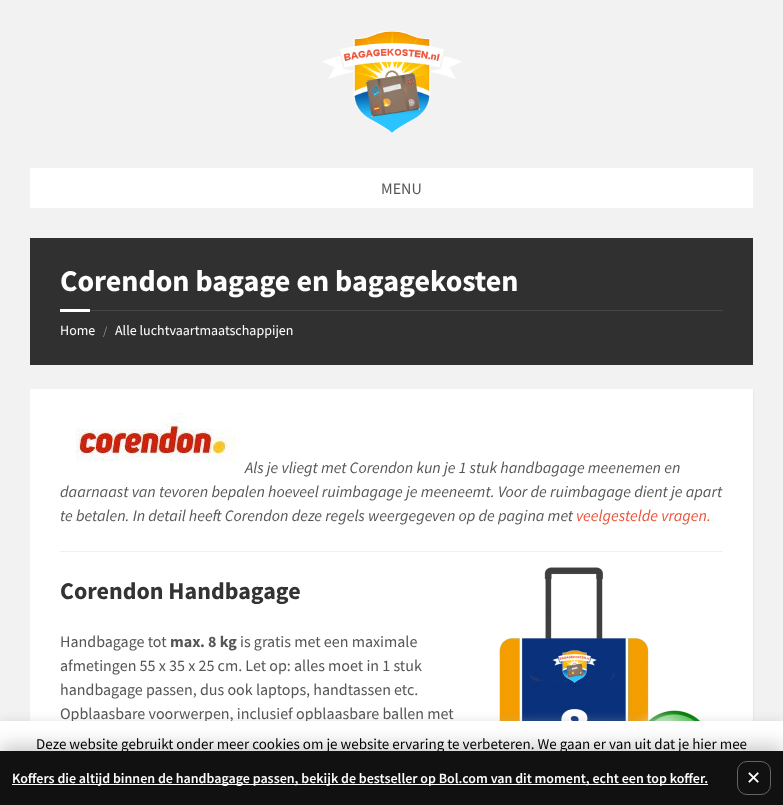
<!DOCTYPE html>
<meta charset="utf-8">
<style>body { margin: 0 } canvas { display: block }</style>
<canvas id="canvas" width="783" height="805"></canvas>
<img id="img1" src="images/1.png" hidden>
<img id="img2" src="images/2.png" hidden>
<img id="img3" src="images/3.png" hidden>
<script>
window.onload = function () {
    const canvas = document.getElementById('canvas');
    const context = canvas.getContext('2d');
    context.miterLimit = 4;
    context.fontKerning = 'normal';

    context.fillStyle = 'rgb(242, 242, 242)';
    context.fillRect(0, 0, 783, 805);
    context.drawImage(document.getElementById('img1'), 322, 31, 140, 103);
    context.fillStyle = 'rgb(255, 255, 255)';
    context.fillRect(30, 168, 723, 40);
    context.fillStyle = 'rgb(48, 48, 48)';
    context.fillRect(30, 238, 723, 127);
    context.fillStyle = 'rgb(69, 69, 69)';
    context.fillRect(90, 310, 633, 1);
    context.fillStyle = 'rgb(255, 255, 255)';
    context.fillRect(60, 309, 30, 3);
    context.fillStyle = 'rgb(230, 230, 230)';
    context.beginPath();
    context.moveTo(31, 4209);
    context.lineTo(31, 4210);
    context.lineTo(754, 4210);
    context.lineTo(754, 390);
    context.lineTo(753, 390);
    context.lineTo(753, 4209);
    context.closePath();
    context.fill();
    context.fillStyle = 'rgb(255, 255, 255)';
    context.fillRect(30, 389, 723, 332);
    context.drawImage(document.getElementById('img2'), 76, 413, 160, 49);
    context.fillStyle = 'rgb(239, 239, 239)';
    context.beginPath();
    context.moveTo(60, 551);
    context.lineTo(723, 551);
    context.lineTo(722, 552);
    context.lineTo(61, 552);
    context.closePath();
    context.fill();
    context.fillStyle = 'rgba(163, 163, 163, 0.17)';
    context.beginPath();
    context.moveTo(60, 553);
    context.lineTo(60, 551);
    context.lineTo(61, 552);
    context.closePath();
    context.fill();
    context.drawImage(document.getElementById('img3'), 499, 567, 201, 154);
    context.fillStyle = 'rgba(172, 171, 171, 0.3)';
    context.filter = 'blur(5px)';
    context.beginPath();
    context.rect(0, 720, 783, 84);
    context.fill();
    context.filter = 'none';
    context.font = '16px Source Sans Pro';
    context.fillStyle = 'rgb(86, 86, 86)';
    context.fillText('MENU', 381, 194);
    context.font = 'bold 30px Source Sans Pro';
    context.fillStyle = 'rgb(255, 255, 255)';
    context.fillText('Corendon bagage en bagagekosten', 60, 291);
    context.font = '14px Source Sans Pro';
    context.fillText('Home', 60, 335);
    context.font = '12px Source Sans Pro';
    context.fillStyle = 'rgb(138, 148, 155)';
    context.fillText('/', 103, 335);
    context.font = '14px Source Sans Pro';
    context.fillStyle = 'rgb(255, 255, 255)';
    context.fillText('Alle luchtvaartmaatschappijen', 115, 335);
    context.font = 'italic 16px Source Sans Pro';
    context.fillStyle = 'rgb(86, 86, 86)';
    context.fillText('Als je vliegt met Corendon kun je 1 stuk handbagage meenemen en', 245, 473);
    context.fillText('daarnaast van tevoren bepalen hoeveel ruimbagage je meeneemt. Voor de ruimbagage dient je apart', 60, 497);
    context.fillText('te betalen. In detail heeft Corendon deze regels weergegeven op de pagina met', 60, 521);
    context.fillStyle = 'rgb(236, 82, 55)';
    context.fillText('veelgestelde vragen.', 576, 521);
    context.font = 'bold 24px Source Sans Pro';
    context.fillStyle = 'rgb(51, 51, 51)';
    context.fillText('Corendon Handbagage', 60, 599);
    context.font = '16px Source Sans Pro';
    context.fillStyle = 'rgb(86, 86, 86)';
    context.fillText('Handbagage tot', 60, 647);
    context.font = 'bold 16px Source Sans Pro';
    context.fillText('max. 8 kg', 170, 647);
    context.font = '16px Source Sans Pro';
    context.fillText('is gratis met een maximale', 240, 647);
    context.fillText('afmetingen 55 x 35 x 25 cm. Let op: alles moet in 1 stuk', 60, 671);
    context.fillText('handbagage passen, dus ook laptops, handtassen etc.', 60, 695);
    context.fillText('Opblaasbare voorwerpen, inclusief opblaasbare ballen met', 60, 719);
    context.fillStyle = 'rgb(255, 255, 255)';
    context.fillRect(0, 721, 783, 30);
    context.font = '15px Source Sans Pro';
    context.fillStyle = 'rgb(0, 0, 0)';
    context.fillText('Deze website gebruikt onder meer cookies om je website ervaring te verbeteren. We gaan er van uit dat je hier mee', 36, 749);
    context.fillStyle = 'rgba(0, 0, 0, 0.2)';
    context.filter = 'blur(9px)';
    context.beginPath();
    context.rect(0, 745, 783, 54);
    context.fill();
    context.filter = 'none';
    context.fillStyle = 'rgb(17, 17, 17)';
    context.fillRect(0, 751, 783, 54);
    context.fillStyle = 'rgb(255, 255, 255)';
    context.fillRect(12, 784, 696, 1);
    context.font = '600 14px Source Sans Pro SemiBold';
    context.fillText('Koffers die altijd binnen de handbagage passen, bekijk de bestseller op Bol.com van dit moment, echt een top koffer.', 12, 783);
    context.beginPath();
    context.roundRect(737.5, 761.5, 33, 33, 9.5);
    context.strokeStyle = 'rgb(100, 100, 100)';
    context.stroke();
    context.font = '18px DejaVu Sans';
    context.fillText('✕', 746, 784);
};
</script>
